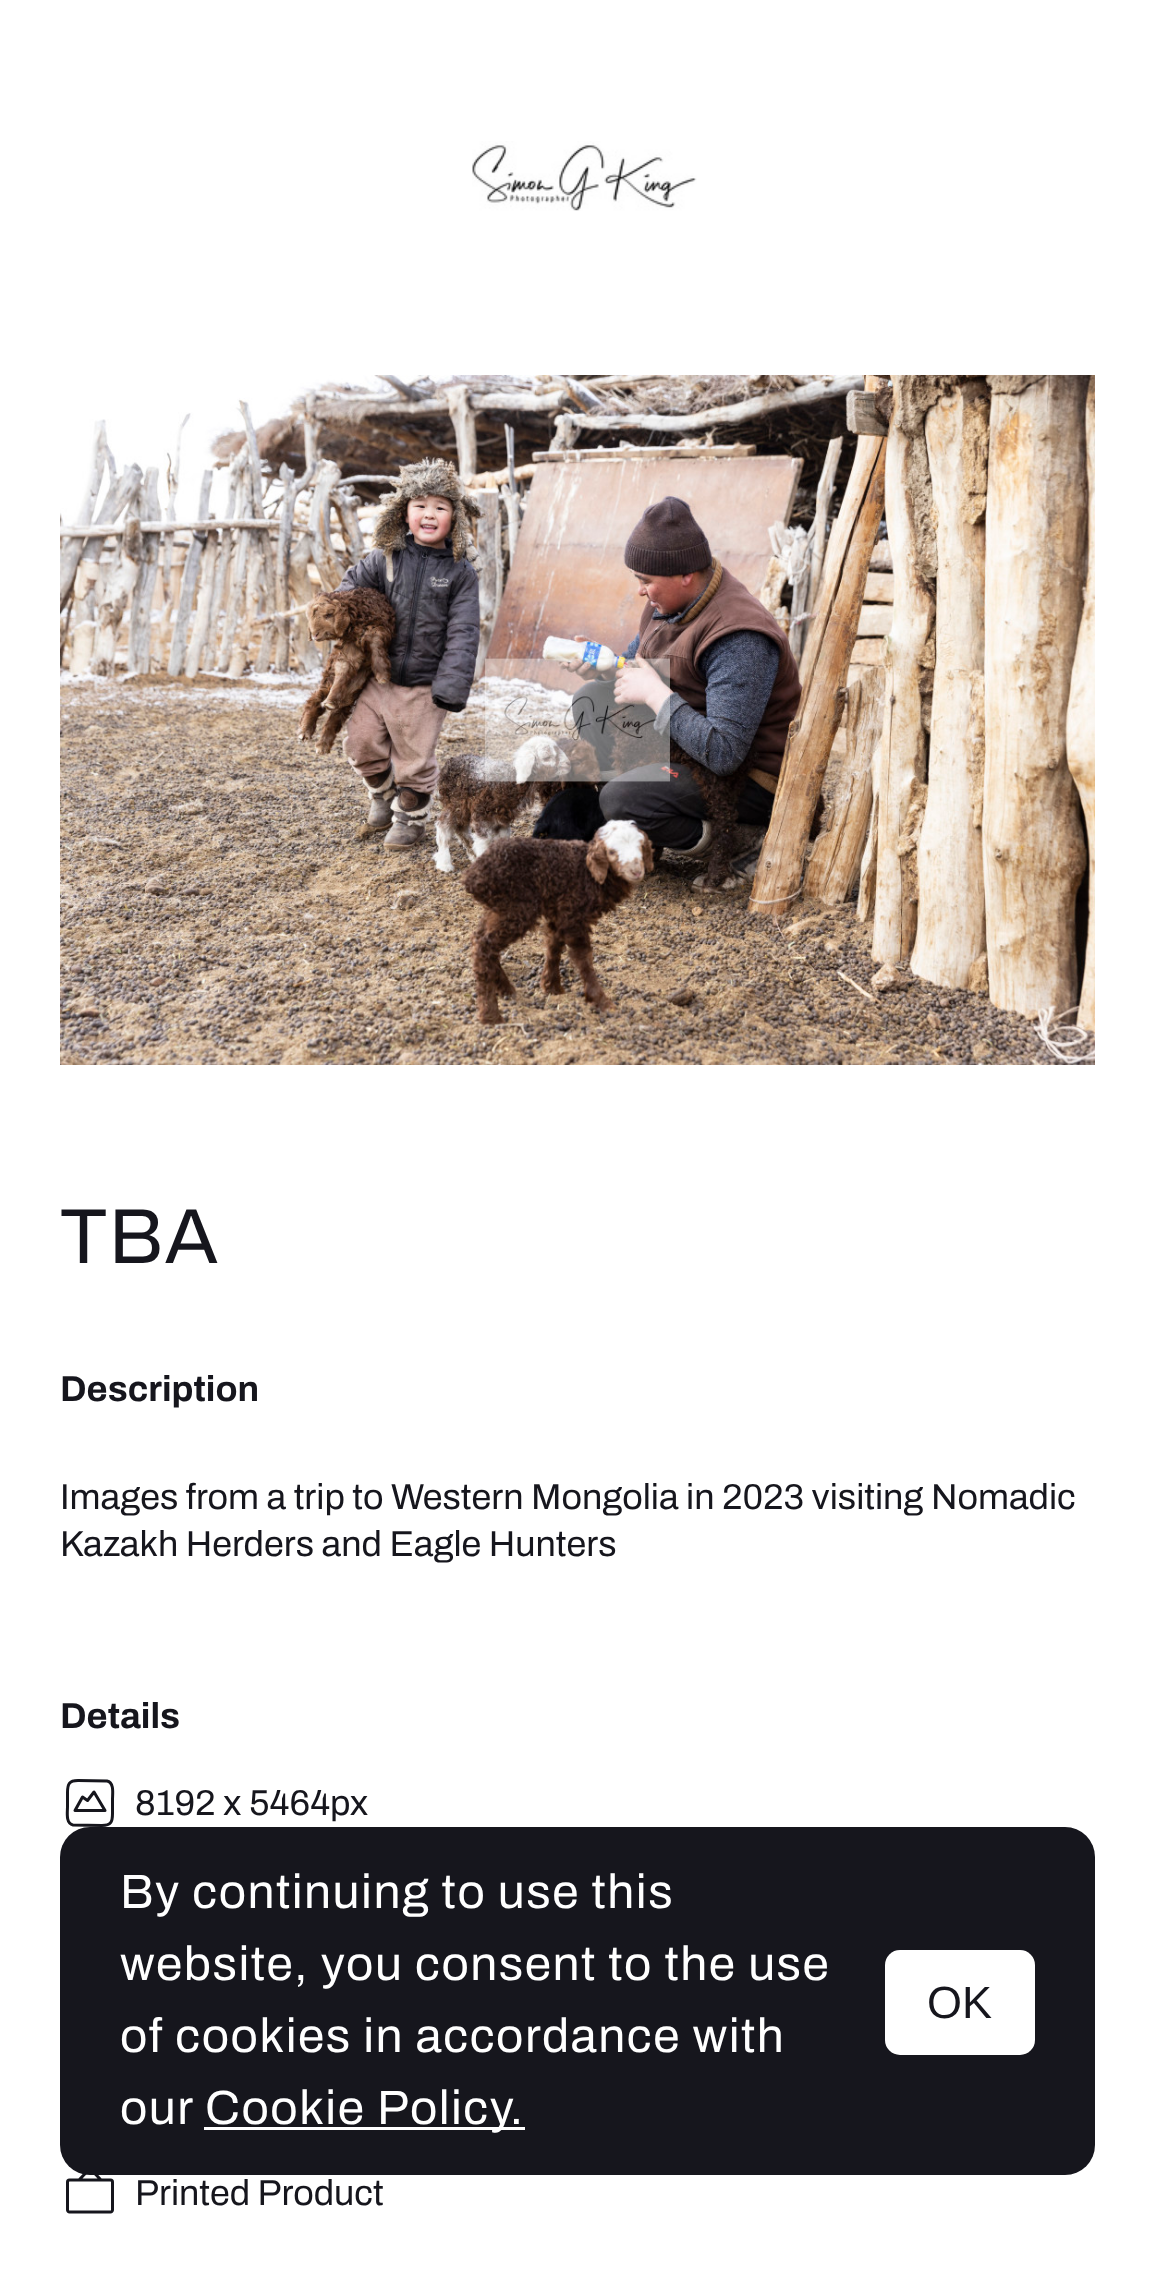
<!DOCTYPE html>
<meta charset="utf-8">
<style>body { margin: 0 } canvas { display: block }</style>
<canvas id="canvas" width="1154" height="2278"></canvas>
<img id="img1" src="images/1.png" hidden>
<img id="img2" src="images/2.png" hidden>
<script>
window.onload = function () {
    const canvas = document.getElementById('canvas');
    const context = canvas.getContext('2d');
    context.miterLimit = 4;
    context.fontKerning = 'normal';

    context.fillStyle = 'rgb(255, 255, 255)';
    context.fillRect(0, 0, 1154, 2278);
    context.drawImage(document.getElementById('img1'), 472, 141, 225, 70);
    context.drawImage(document.getElementById('img2'), 60, 375, 1035, 690);
    context.beginPath();
    context.moveTo(67.5, 1792.5);
    context.bezierCurveTo(67.5, 1784, 69, 1780.5, 78, 1780.5);
    context.lineTo(107, 1781);
    context.bezierCurveTo(114.5, 1782.5, 112.5, 1794, 112.5, 1799.5);
    context.lineTo(112.5, 1813.5);
    context.bezierCurveTo(112.5, 1822, 111, 1825.5, 102, 1825.5);
    context.lineTo(73, 1825);
    context.bezierCurveTo(65.5, 1823.5, 67.5, 1812, 67.5, 1806.5);
    context.closePath();
    context.moveTo(82.5, 1797);
    context.lineTo(75, 1810.5);
    context.lineTo(105, 1810.5);
    context.lineTo(94, 1792);
    context.lineTo(87.5, 1800.5);
    context.closePath();
    context.strokeStyle = 'rgb(22, 22, 29)';
    context.lineWidth = 3;
    context.lineCap = 'round';
    context.lineJoin = 'round';
    context.stroke();
    context.beginPath();
    context.moveTo(110.5, 2180);
    context.lineTo(69.5, 2180);
    context.bezierCurveTo(68.5, 2180, 67.5, 2180.5, 67.5, 2182);
    context.lineTo(67.5, 2210);
    context.bezierCurveTo(67.5, 2211, 68.5, 2212, 69.5, 2212);
    context.lineTo(110.5, 2212);
    context.bezierCurveTo(111.5, 2212, 112.5, 2211, 112.5, 2210);
    context.lineTo(112.5, 2182);
    context.bezierCurveTo(112.5, 2180.5, 111.5, 2180, 110.5, 2180);
    context.closePath();
    context.moveTo(101, 2180);
    context.lineTo(90, 2168.5);
    context.lineTo(79, 2180);
    context.stroke();
    context.fillStyle = 'rgb(22, 22, 29)';
    context.beginPath();
    context.roundRect(60, 1827, 1035, 348, 30);
    context.fill();
    context.fillStyle = 'rgb(255, 255, 255)';
    context.fillRect(204, 2127, 321, 3);
    context.beginPath();
    context.roundRect(885, 1950, 150, 105, 15);
    context.fill();
    context.letterSpacing = '1.5px';
    context.font = '78px Archivo';
    context.fillStyle = 'rgb(22, 22, 29)';
    context.fillText('TBA', 60, 1263);
    context.letterSpacing = '0px';
    context.font = 'bold 36px Archivo';
    context.fillText('Description', 60, 1401);
    context.font = '36px Archivo';
    context.fillText('Images from a trip to Western Mongolia in 2023 visiting Nomadic', 60, 1509);
    context.fillText('Kazakh Herders and Eagle Hunters', 60, 1556);
    context.font = 'bold 36px Archivo';
    context.fillText('Details', 60, 1728);
    context.font = '36px Archivo';
    context.fillText('8192 x 5464px', 135, 1815);
    context.fillText('Printed Product', 135, 2205);
    context.letterSpacing = '1.5px';
    context.font = '48px Archivo';
    context.fillStyle = 'rgb(255, 255, 255)';
    context.fillText('By continuing to use this', 120, 1908);
    context.fillText('website, you consent to the use', 120, 1980);
    context.fillText('of cookies in accordance with', 120, 2052);
    context.fillText('our', 120, 2124);
    context.fillText('Cookie Policy.', 205, 2124);
    context.letterSpacing = '0px';
    context.font = '45px Liberation Sans';
    context.fillStyle = 'rgb(22, 22, 29)';
    context.fillText('OK', 927, 2018);
};
</script>
